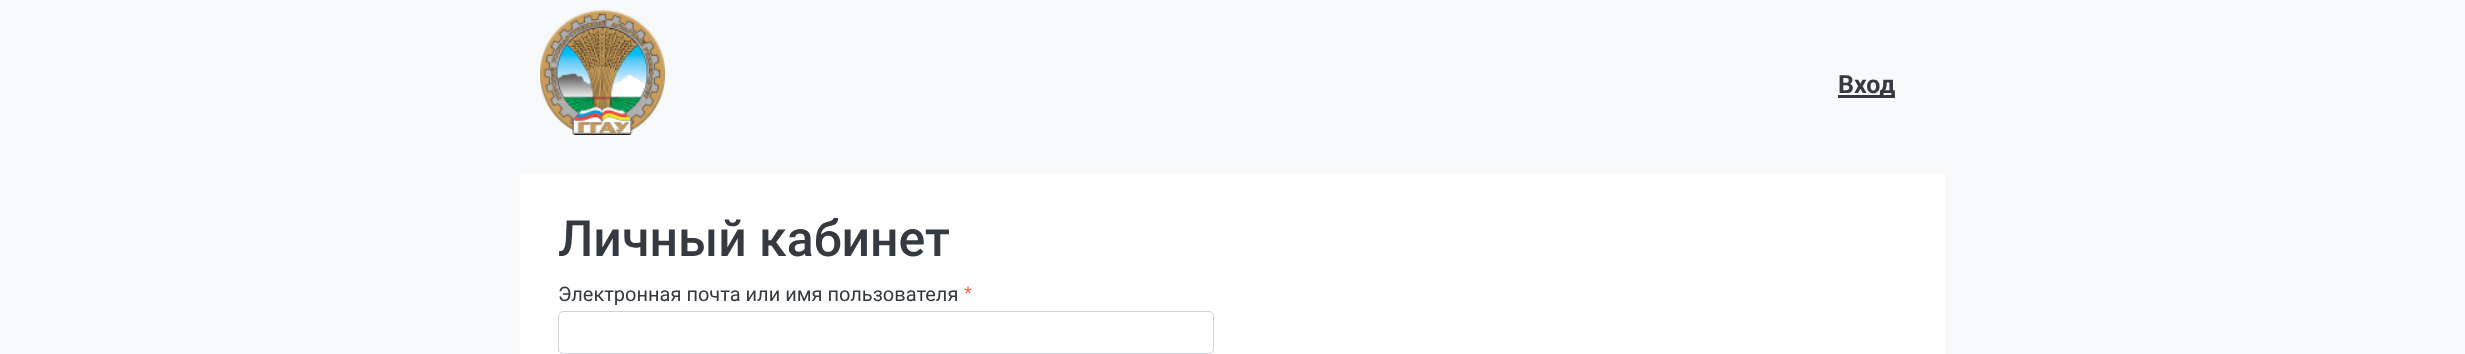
<!DOCTYPE html>
<meta charset="utf-8">
<style>body { margin: 0 } canvas { display: block }</style>
<canvas id="canvas" width="2465" height="354"></canvas>
<img id="img1" src="images/1.png" hidden>
<script>
window.onload = function () {
    const canvas = document.getElementById('canvas');
    const context = canvas.getContext('2d');
    context.miterLimit = 4;
    context.fontKerning = 'normal';

    context.fillStyle = 'rgb(248, 249, 250)';
    context.fillRect(0, 0, 2465, 354);
    context.drawImage(document.getElementById('img1'), 540, 10, 125, 125);
    context.fillStyle = 'rgb(52, 58, 64)';
    context.fillRect(1838, 95, 57, 3);
    context.fillStyle = 'rgb(255, 255, 255)';
    context.fillRect(520, 173, 1425, 181);
    context.beginPath();
    context.roundRect(558.5, 311.5, 655, 42, 4.5);
    context.strokeStyle = 'rgb(206, 212, 218)';
    context.stroke();
    context.font = 'bold 25px Roboto';
    context.fillStyle = 'rgb(52, 58, 64)';
    context.fillText('Вход', 1838, 93);
    context.font = '500 50px Roboto';
    context.fillText('Личный кабинет', 558, 256);
    context.font = '20px Roboto';
    context.fillText('Электронная почта или имя пользователя', 558, 301);
    context.font = '20px Liberation Mono';
    context.fillStyle = 'rgb(255, 99, 71)';
    context.fillText('*', 962, 301);
};
</script>
